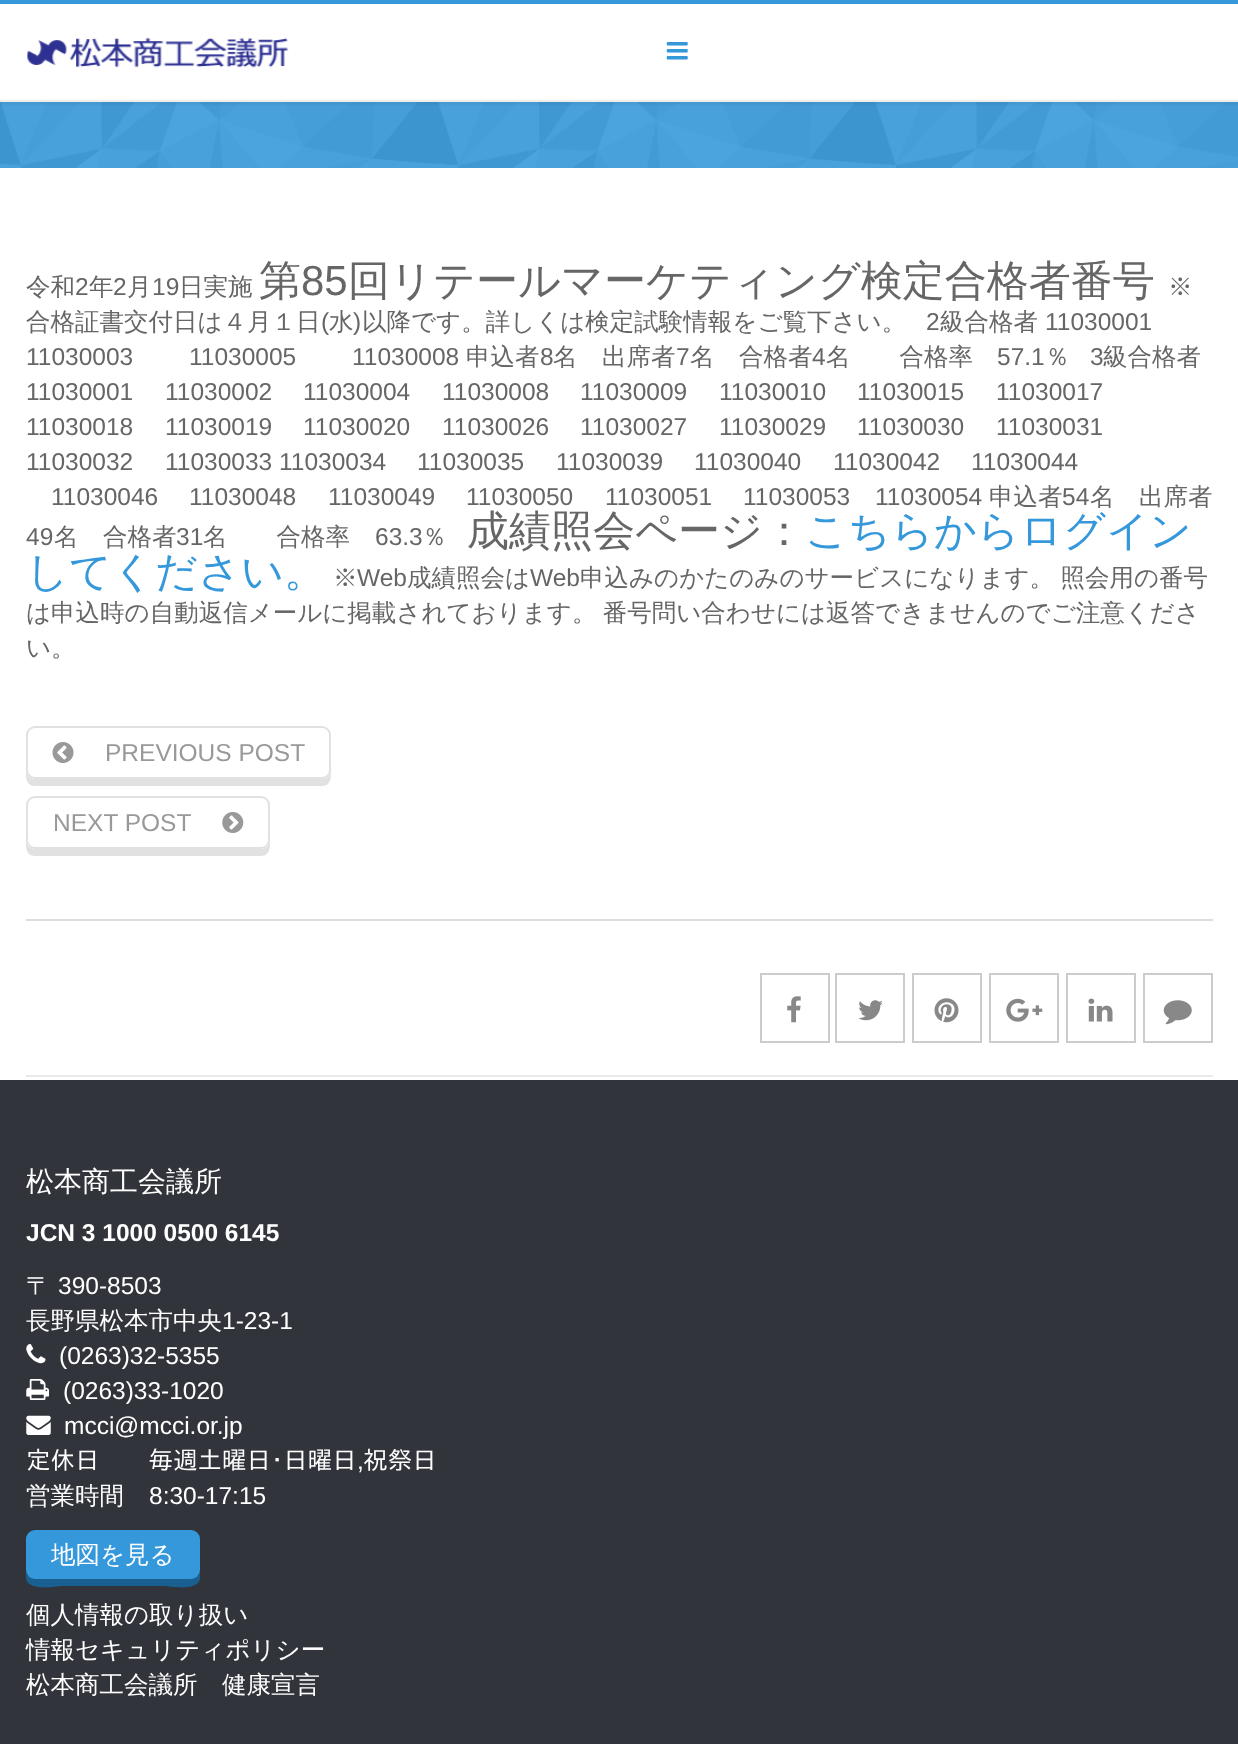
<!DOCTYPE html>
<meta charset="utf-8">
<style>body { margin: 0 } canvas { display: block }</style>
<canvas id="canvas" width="1238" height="1744"></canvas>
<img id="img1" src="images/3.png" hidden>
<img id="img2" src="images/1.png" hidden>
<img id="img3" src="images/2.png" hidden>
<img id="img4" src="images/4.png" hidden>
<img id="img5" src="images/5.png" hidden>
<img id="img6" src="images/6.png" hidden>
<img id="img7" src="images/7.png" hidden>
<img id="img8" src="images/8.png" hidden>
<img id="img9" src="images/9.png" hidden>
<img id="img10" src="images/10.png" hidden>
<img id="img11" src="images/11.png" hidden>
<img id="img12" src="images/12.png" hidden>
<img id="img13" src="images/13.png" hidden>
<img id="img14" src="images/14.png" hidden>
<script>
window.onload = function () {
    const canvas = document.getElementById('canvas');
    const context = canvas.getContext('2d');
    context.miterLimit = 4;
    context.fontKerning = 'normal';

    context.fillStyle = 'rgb(255, 255, 255)';
    context.fillRect(0, 0, 1238, 1744);
    context.fillStyle = 'rgb(52, 152, 219)';
    context.fillRect(0, 102, 1238, 66);
    context.drawImage(document.getElementById('img1'), 0, 102, 1238, 66);
    context.fillStyle = 'rgba(0, 0, 0, 0.05)';
    context.filter = 'blur(1px)';
    context.beginPath();
    context.rect(-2, 0, 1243, 105);
    context.fill();
    context.filter = 'none';
    context.fillStyle = 'rgb(255, 255, 255)';
    context.fillRect(0, 4, 1238, 96);
    context.fillStyle = 'rgb(52, 152, 219)';
    context.fillRect(0, 0, 1238, 4);
    context.fillStyle = 'rgb(238, 238, 238)';
    context.fillRect(0, 100, 1238, 2);
    context.drawImage(document.getElementById('img2'), 27, 37, 262, 31);
    context.drawImage(document.getElementById('img3'), 666, 42, 22, 18);
    context.fillStyle = 'rgb(221, 221, 221)';
    context.fillRect(26, 919, 1187, 2);
    context.fillStyle = 'rgb(225, 225, 225)';
    context.beginPath();
    context.moveTo(26, 740);
    context.lineTo(26, 765);
    context.bezierCurveTo(26, 773, 24, 786, 35, 786);
    context.lineTo(322, 786);
    context.bezierCurveTo(333, 786, 331, 773, 331, 765);
    context.lineTo(331, 740);
    context.lineTo(331, 770);
    context.bezierCurveTo(331, 775, 327, 779, 322, 779);
    context.lineTo(35, 779);
    context.bezierCurveTo(30, 779, 26, 775, 26, 770);
    context.closePath();
    context.fill();
    context.fillStyle = 'rgb(255, 255, 255)';
    context.beginPath();
    context.roundRect(27, 727, 303, 51, 8);
    context.fill();
    context.strokeStyle = 'rgb(225, 225, 225)';
    context.lineWidth = 2;
    context.stroke();
    context.drawImage(document.getElementById('img4'), 52, 742, 22, 21);
    context.fillStyle = 'rgb(225, 225, 225)';
    context.beginPath();
    context.moveTo(26, 810);
    context.lineTo(26, 835);
    context.bezierCurveTo(26, 843, 24, 856, 35, 856);
    context.lineTo(261, 856);
    context.bezierCurveTo(272, 856, 270, 843, 270, 835);
    context.lineTo(270, 809);
    context.lineTo(270, 840);
    context.bezierCurveTo(270, 845, 266, 849, 261, 849);
    context.lineTo(35, 849);
    context.bezierCurveTo(30, 849, 26, 845, 26, 840);
    context.closePath();
    context.fill();
    context.fillStyle = 'rgb(255, 255, 255)';
    context.beginPath();
    context.roundRect(27, 797, 242, 51, 8);
    context.fill();
    context.stroke();
    context.drawImage(document.getElementById('img5'), 222, 812, 22, 21);
    context.strokeStyle = 'rgb(204, 204, 204)';
    context.strokeRect(761, 974, 68, 68);
    context.drawImage(document.getElementById('img6'), 787, 996, 14, 27);
    context.strokeRect(836, 974, 68, 68);
    context.drawImage(document.getElementById('img7'), 858, 1000, 25, 21);
    context.strokeRect(913, 974, 68, 68);
    context.drawImage(document.getElementById('img8'), 934, 998, 25, 25);
    context.strokeRect(990, 974, 68, 68);
    context.drawImage(document.getElementById('img9'), 1006, 998, 37, 24);
    context.strokeRect(1067, 974, 68, 68);
    context.drawImage(document.getElementById('img10'), 1088, 998, 25, 24);
    context.strokeRect(1144, 974, 68, 68);
    context.drawImage(document.getElementById('img11'), 1163, 1000, 29, 25);
    context.fillStyle = 'rgb(233, 233, 233)';
    context.fillRect(26, 1075, 1187, 2);
    context.fillStyle = 'rgb(50, 52, 59)';
    context.fillRect(0, 1080, 1238, 664);
    context.drawImage(document.getElementById('img12'), 26, 1344, 20, 20);
    context.drawImage(document.getElementById('img13'), 26, 1379, 23, 21);
    context.drawImage(document.getElementById('img14'), 26, 1415, 25, 20);
    context.fillStyle = 'rgb(25, 96, 144)';
    context.beginPath();
    context.moveTo(26, 1544);
    context.lineTo(26, 1579);
    context.bezierCurveTo(29, 1592, 58, 1586, 61, 1586);
    context.lineTo(165, 1586);
    context.bezierCurveTo(168, 1586, 197, 1592, 200, 1579);
    context.lineTo(200, 1551);
    context.lineTo(200, 1543);
    context.lineTo(200, 1570);
    context.bezierCurveTo(200, 1575, 196, 1578, 191, 1578);
    context.lineTo(35, 1578);
    context.bezierCurveTo(30, 1578, 26, 1575, 26, 1570);
    context.closePath();
    context.fill();
    context.fillStyle = 'rgb(52, 152, 219)';
    context.beginPath();
    context.roundRect(26, 1530, 174, 49, 9);
    context.fill();
    context.font = '500 24.5px WenQuanYi Zen Hei';
    context.fillStyle = 'rgb(102, 102, 102)';
    context.fillText('令和', 26, 295);
    context.font = '24.5px Liberation Sans';
    context.fillText('2', 75, 295);
    context.font = '500 24.5px WenQuanYi Zen Hei';
    context.fillText('年', 89, 295);
    context.font = '24.5px Liberation Sans';
    context.fillText('2', 113, 295);
    context.font = '500 24.5px WenQuanYi Zen Hei';
    context.fillText('月', 127, 295);
    context.font = '24.5px Liberation Sans';
    context.fillText('19', 152, 295);
    context.font = '500 24.5px WenQuanYi Zen Hei';
    context.fillText('日実施', 179, 295);
    context.font = '500 42px WenQuanYi Zen Hei';
    context.fillText('第', 259, 295);
    context.font = '42px Liberation Sans';
    context.fillText('85', 301, 295);
    context.font = '500 42px WenQuanYi Zen Hei';
    context.fillText('回リテールマーケティング検定合格者番号', 348, 295);
    context.font = '500 24.5px WenQuanYi Zen Hei';
    context.fillText('※', 1168, 295);
    context.fillText('合格証書交付日は４月１日', 26, 330);
    context.font = '24.5px Liberation Sans';
    context.fillText('(', 321, 330);
    context.font = '500 24.5px WenQuanYi Zen Hei';
    context.fillText('水', 329, 330);
    context.font = '24.5px Liberation Sans';
    context.fillText(')', 353, 330);
    context.font = '500 24.5px WenQuanYi Zen Hei';
    context.fillText('以降です。詳しくは検定試験情報をご覧下さい。', 362, 330);
    context.font = '24.5px Liberation Sans';
    context.fillText('2', 926, 330);
    context.font = '500 24.5px WenQuanYi Zen Hei';
    context.fillText('級合格者', 940, 330);
    context.font = '24.5px Liberation Sans';
    context.fillText('11030001', 1045, 330);
    context.fillText('11030003', 26, 365);
    context.fillText('11030005', 189, 365);
    context.fillText('11030008', 352, 365);
    context.font = '500 24.5px WenQuanYi Zen Hei';
    context.fillText('申込者', 466, 365);
    context.font = '24.5px Liberation Sans';
    context.fillText('8', 540, 365);
    context.font = '500 24.5px WenQuanYi Zen Hei';
    context.fillText('名　出席者', 553, 365);
    context.font = '24.5px Liberation Sans';
    context.fillText('7', 676, 365);
    context.font = '500 24.5px WenQuanYi Zen Hei';
    context.fillText('名　合格者', 690, 365);
    context.font = '24.5px Liberation Sans';
    context.fillText('4', 812, 365);
    context.font = '500 24.5px WenQuanYi Zen Hei';
    context.fillText('名　　合格率', 826, 365);
    context.font = '24.5px Liberation Sans';
    context.fillText('57.1', 997, 365);
    context.font = '500 24.5px WenQuanYi Zen Hei';
    context.fillText('％', 1045, 365);
    context.font = '24.5px Liberation Sans';
    context.fillText('3', 1090, 365);
    context.font = '500 24.5px WenQuanYi Zen Hei';
    context.fillText('級合格者', 1103, 365);
    context.font = '24.5px Liberation Sans';
    context.fillText('11030001', 26, 400);
    context.fillText('11030002', 165, 400);
    context.fillText('11030004', 303, 400);
    context.fillText('11030008', 442, 400);
    context.fillText('11030009', 580, 400);
    context.fillText('11030010', 719, 400);
    context.fillText('11030015', 857, 400);
    context.fillText('11030017', 996, 400);
    context.fillText('11030018', 26, 435);
    context.fillText('11030019', 165, 435);
    context.fillText('11030020', 303, 435);
    context.fillText('11030026', 442, 435);
    context.fillText('11030027', 580, 435);
    context.fillText('11030029', 719, 435);
    context.fillText('11030030', 857, 435);
    context.fillText('11030031', 996, 435);
    context.fillText('11030032', 26, 470);
    context.fillText('11030033 11030034', 165, 470);
    context.fillText('11030035', 417, 470);
    context.fillText('11030039', 556, 470);
    context.fillText('11030040', 694, 470);
    context.fillText('11030042', 833, 470);
    context.fillText('11030044', 971, 470);
    context.fillText('11030046', 51, 505);
    context.fillText('11030048', 189, 505);
    context.fillText('11030049', 328, 505);
    context.fillText('11030050', 466, 505);
    context.fillText('11030051', 605, 505);
    context.fillText('11030053', 743, 505);
    context.fillText('11030054', 875, 505);
    context.font = '500 24.5px WenQuanYi Zen Hei';
    context.fillText('申込者', 989, 505);
    context.font = '24.5px Liberation Sans';
    context.fillText('54', 1062, 505);
    context.font = '500 24.5px WenQuanYi Zen Hei';
    context.fillText('名　出席者', 1090, 505);
    context.font = '24.5px Liberation Sans';
    context.fillText('49', 26, 545);
    context.font = '500 24.5px WenQuanYi Zen Hei';
    context.fillText('名　合格者', 54, 545);
    context.font = '24.5px Liberation Sans';
    context.fillText('31', 176, 545);
    context.font = '500 24.5px WenQuanYi Zen Hei';
    context.fillText('名　　合格率', 203, 545);
    context.font = '24.5px Liberation Sans';
    context.fillText('63.3', 375, 545);
    context.font = '500 24.5px WenQuanYi Zen Hei';
    context.fillText('％', 422, 545);
    context.font = '500 42px WenQuanYi Zen Hei';
    context.fillText('成績照会ページ：', 467, 545);
    context.fillStyle = 'rgb(52, 152, 219)';
    context.fillText('こちらからログイン', 805, 545);
    context.fillText('してください。', 26, 586);
    context.font = '500 24.5px WenQuanYi Zen Hei';
    context.fillStyle = 'rgb(102, 102, 102)';
    context.fillText('※', 333, 586);
    context.font = '24.5px Liberation Sans';
    context.fillText('Web', 357, 586);
    context.font = '500 24.5px WenQuanYi Zen Hei';
    context.fillText('成績照会は', 407, 586);
    context.font = '24.5px Liberation Sans';
    context.fillText('Web', 530, 586);
    context.wordSpacing = '-1px';
    context.font = '500 24.5px WenQuanYi Zen Hei';
    context.fillText('申込みのかたのみのサービスになります。 照会用の番号', 580, 586);
    context.fillText('は申込時の自動返信メールに掲載されております。 番号問い合わせには返答できませんのでご注意くださ', 26, 621);
    context.wordSpacing = '0px';
    context.fillText('い。', 26, 656);
    context.font = '24.5px Liberation Sans';
    context.fillStyle = 'rgb(153, 153, 153)';
    context.fillText('PREVIOUS POST', 105, 761);
    context.fillText('NEXT POST', 53, 831);
    context.font = '500 28px WenQuanYi Zen Hei';
    context.fillStyle = 'rgb(255, 255, 255)';
    context.fillText('松本商工会議所', 26, 1191);
    context.font = 'bold 24.5px Liberation Sans';
    context.fillText('JCN 3 1000 0500 6145', 26, 1241);
    context.font = '500 24.5px WenQuanYi Zen Hei';
    context.fillText('〒', 26, 1294);
    context.font = '24.5px Liberation Sans';
    context.fillText('390-8503', 58, 1294);
    context.font = '500 24.5px WenQuanYi Zen Hei';
    context.fillText('長野県松本市中央', 26, 1329);
    context.font = '24.5px Liberation Sans';
    context.fillText('1-23-1', 222, 1329);
    context.fillText('(0263)32-5355', 59, 1364);
    context.fillText('(0263)33-1020', 63, 1399);
    context.fillText('mcci@mcci.or.jp', 64, 1434);
    context.font = '24.5px IPAPGothic';
    context.fillText('定休日　　毎週土曜日･日曜日 祝祭日', 26, 1469);
    context.font = '24.5px Liberation Sans';
    context.fillText(',', 357, 1469);
    context.font = '500 24.5px WenQuanYi Zen Hei';
    context.fillText('営業時間', 26, 1504);
    context.font = '24.5px Liberation Sans';
    context.fillText('8:30-17:15', 149, 1504);
    context.font = '500 24.5px WenQuanYi Zen Hei';
    context.fillText('地図を見る', 51, 1563);
    context.fillText('個人情報の取り扱い', 26, 1623);
    context.fillText('情報セキュリティポリシー', 26, 1658);
    context.fillText('松本商工会議所　健康宣言', 26, 1693);
};
</script>
